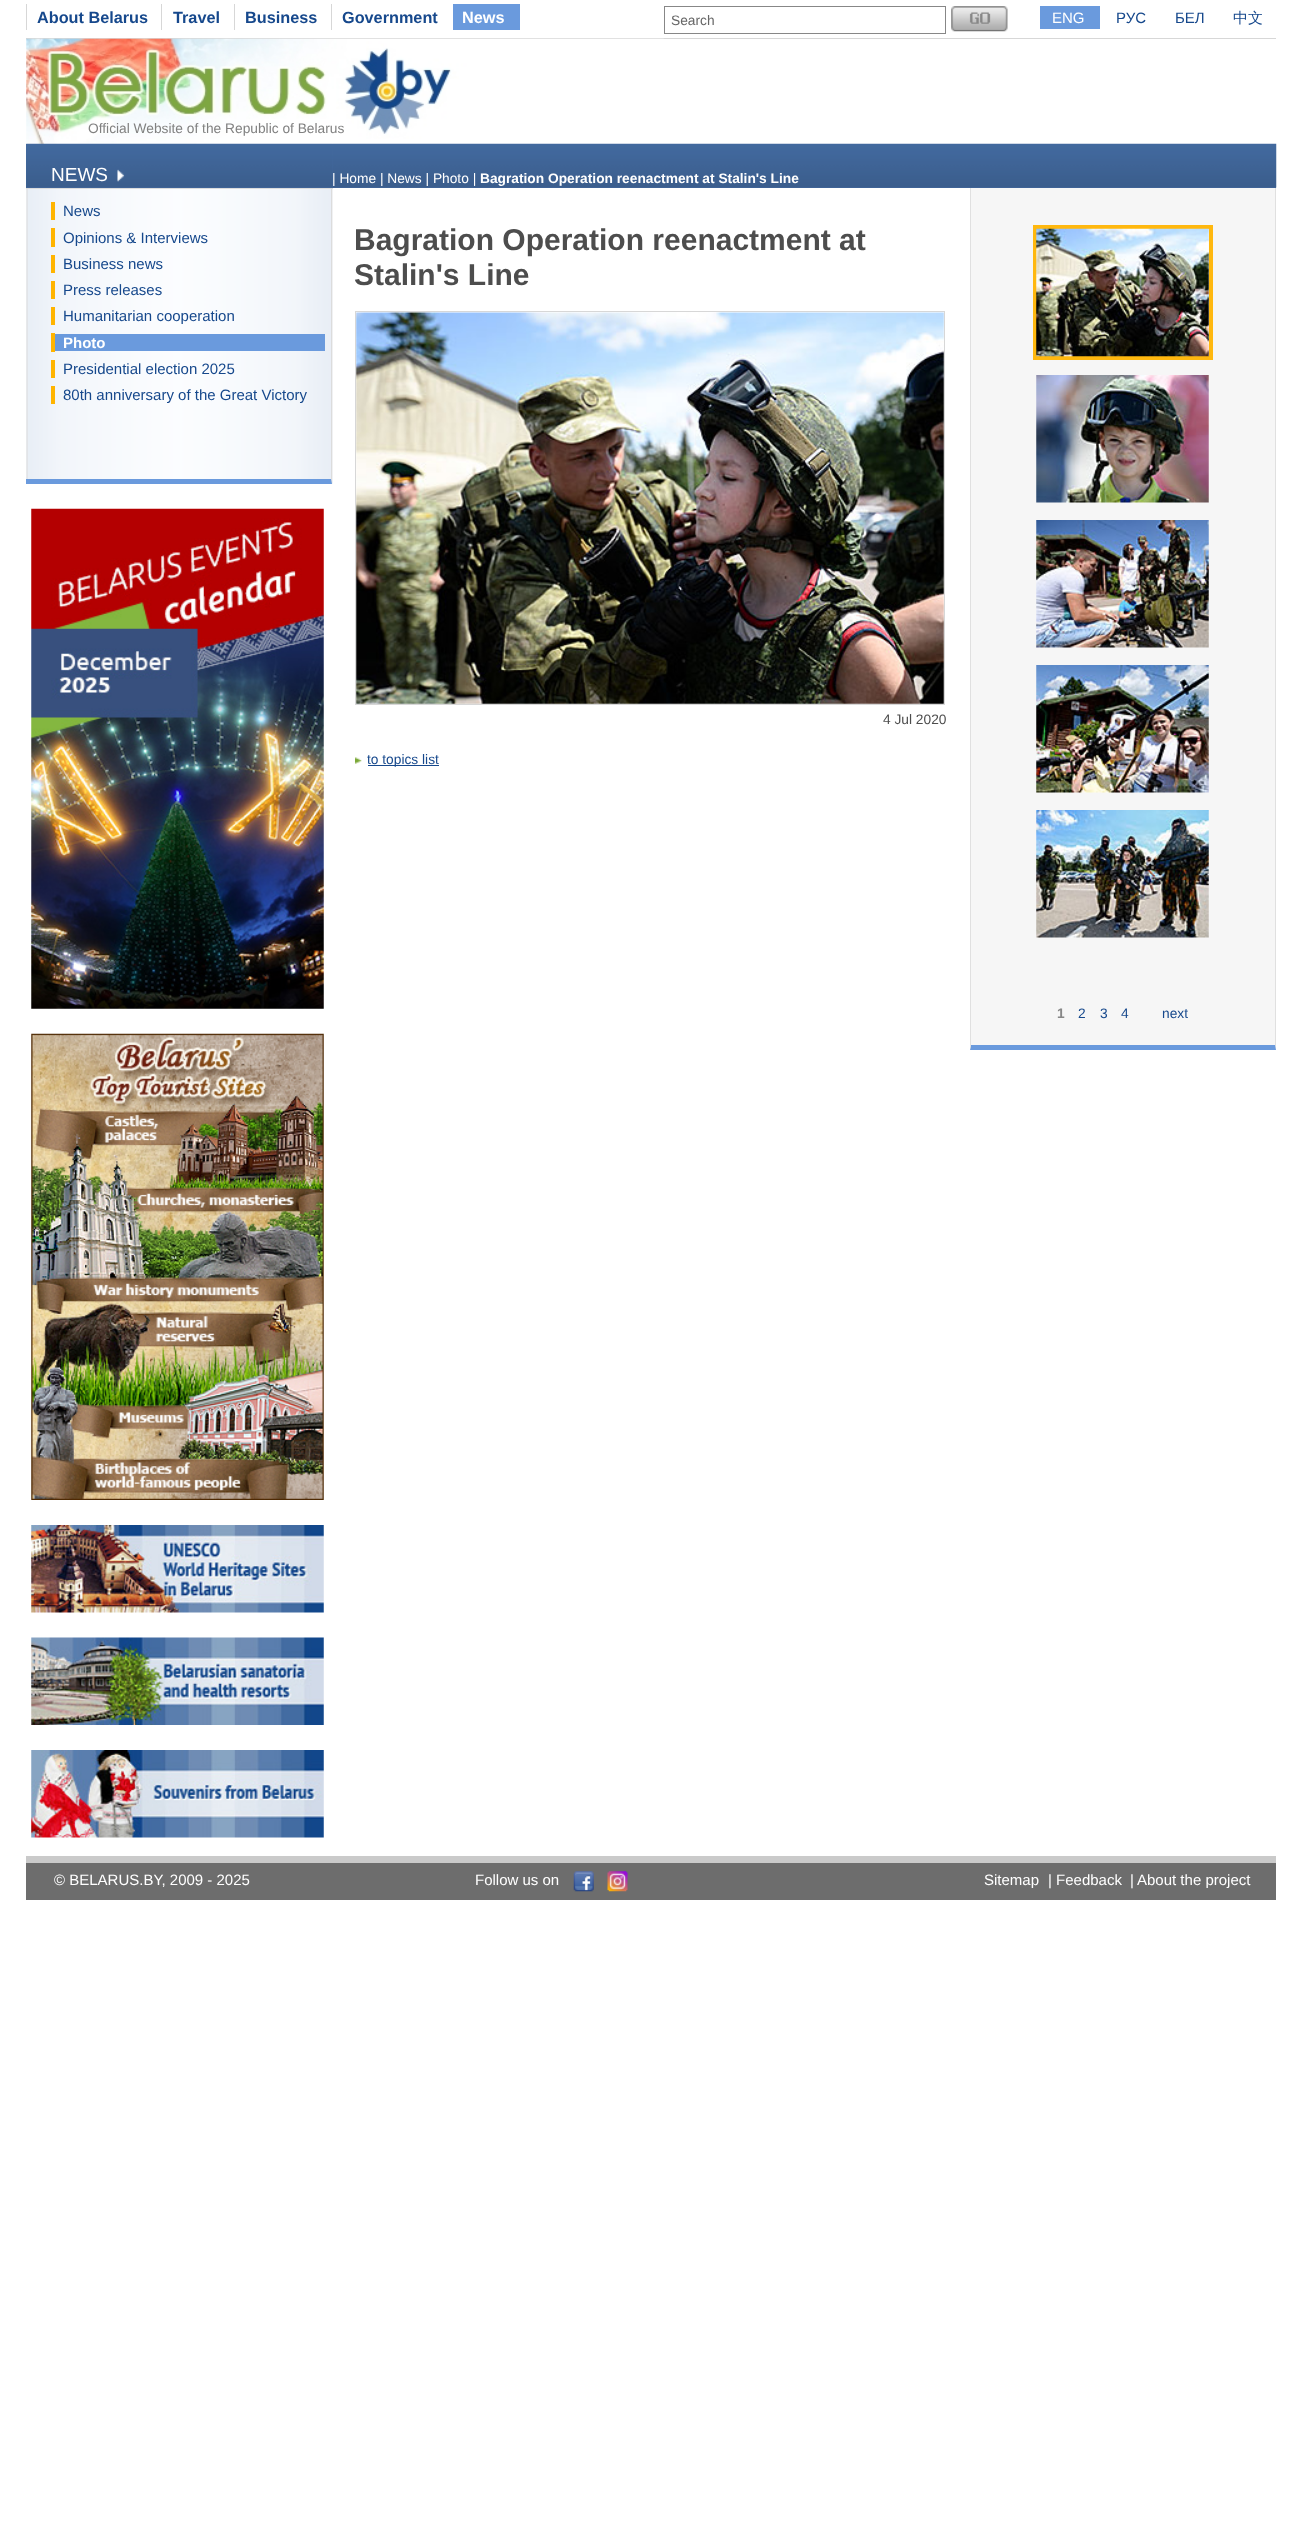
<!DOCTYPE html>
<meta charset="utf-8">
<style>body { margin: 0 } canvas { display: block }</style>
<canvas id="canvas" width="1301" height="2542"></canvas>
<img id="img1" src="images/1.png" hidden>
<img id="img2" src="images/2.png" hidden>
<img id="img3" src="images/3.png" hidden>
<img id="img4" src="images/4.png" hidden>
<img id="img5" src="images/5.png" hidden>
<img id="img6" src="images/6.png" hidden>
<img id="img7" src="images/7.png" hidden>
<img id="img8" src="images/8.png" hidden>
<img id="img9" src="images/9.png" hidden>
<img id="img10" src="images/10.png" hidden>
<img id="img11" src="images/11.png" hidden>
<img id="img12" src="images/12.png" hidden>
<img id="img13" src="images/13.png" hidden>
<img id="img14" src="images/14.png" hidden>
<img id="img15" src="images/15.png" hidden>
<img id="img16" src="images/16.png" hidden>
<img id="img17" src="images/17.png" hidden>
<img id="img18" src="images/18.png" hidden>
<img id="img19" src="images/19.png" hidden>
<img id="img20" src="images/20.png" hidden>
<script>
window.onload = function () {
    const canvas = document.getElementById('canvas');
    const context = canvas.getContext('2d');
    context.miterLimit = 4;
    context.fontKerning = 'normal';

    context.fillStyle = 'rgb(255, 255, 255)';
    context.fillRect(0, 0, 1301, 2542);
    context.fillStyle = 'rgb(215, 215, 215)';
    context.fillRect(26, 38, 1250, 1);
    context.fillRect(26, 4, 1, 26);
    context.fillRect(161, 4, 1, 26);
    context.fillRect(234, 4, 1, 26);
    context.fillRect(331, 4, 1, 26);
    context.fillStyle = 'rgb(106, 154, 221)';
    context.fillRect(453, 4, 67, 26);
    context.strokeStyle = 'rgb(135, 135, 135)';
    context.strokeRect(664.5, 6.5, 281, 27);
    context.drawImage(document.getElementById('img1'), 951, 6, 57, 26);
    context.fillRect(1040, 6, 60, 23);
    context.drawImage(document.getElementById('img2'), 26, 38, 638, 106);
    context.fillStyle = 'rgb(66, 105, 158)';
    context.fillRect(26, 144, 307, 44);
    context.drawImage(document.getElementById('img3'), 26, 143, 307, 45);
    context.drawImage(document.getElementById('img4'), 117, 169, 8, 13);
    context.drawImage(document.getElementById('img5'), 26, 189, 307, 295);
    context.fillStyle = 'rgb(220, 220, 220)';
    context.fillRect(26, 188, 307, 1);
    context.beginPath();
    context.moveTo(332, 188);
    context.lineTo(332, 484);
    context.lineTo(331, 479);
    context.lineTo(331, 189);
    context.closePath();
    context.fill();
    context.fillStyle = 'rgb(106, 154, 221)';
    context.beginPath();
    context.moveTo(332, 484);
    context.lineTo(26, 484);
    context.lineTo(26, 479);
    context.lineTo(331, 479);
    context.closePath();
    context.fill();
    context.fillStyle = 'rgb(255, 180, 0)';
    context.fillRect(51, 202, 4, 18);
    context.fillRect(51, 228, 4, 19);
    context.fillRect(51, 255, 4, 18);
    context.fillRect(51, 281, 4, 18);
    context.fillRect(51, 307, 4, 18);
    context.fillStyle = 'rgb(106, 154, 221)';
    context.fillRect(55, 334, 270, 17);
    context.fillStyle = 'rgb(255, 180, 0)';
    context.fillRect(51, 333, 4, 19);
    context.fillRect(51, 360, 4, 18);
    context.fillRect(51, 386, 4, 18);
    context.drawImage(document.getElementById('img6'), 31, 508, 293, 501);
    context.drawImage(document.getElementById('img7'), 31, 1033, 293, 467);
    context.drawImage(document.getElementById('img8'), 31, 1525, 293, 88);
    context.drawImage(document.getElementById('img9'), 31, 1637, 293, 88);
    context.drawImage(document.getElementById('img10'), 31, 1750, 293, 88);
    context.fillStyle = 'rgb(66, 105, 158)';
    context.fillRect(333, 187, 943, 1);
    context.drawImage(document.getElementById('img11'), 332, 143, 945, 45);
    context.strokeStyle = 'rgb(215, 215, 215)';
    context.strokeRect(355.5, 311.5, 589, 393);
    context.drawImage(document.getElementById('img12'), 356, 312, 588, 392);
    context.drawImage(document.getElementById('img13'), 355, 757, 7, 7);
    context.fillStyle = 'rgb(22, 72, 140)';
    context.fillRect(368, 765, 71, 1);
    context.fillStyle = 'rgb(246, 246, 246)';
    context.fillRect(970, 188, 306, 862);
    context.fillStyle = 'rgb(224, 224, 224)';
    context.beginPath();
    context.moveTo(1276, 188);
    context.lineTo(1276, 1050);
    context.lineTo(1275, 1045);
    context.lineTo(1275, 188);
    context.closePath();
    context.fill();
    context.fillStyle = 'rgb(106, 154, 221)';
    context.beginPath();
    context.moveTo(1276, 1050);
    context.lineTo(970, 1050);
    context.lineTo(971, 1045);
    context.lineTo(1275, 1045);
    context.closePath();
    context.fill();
    context.fillStyle = 'rgb(224, 224, 224)';
    context.beginPath();
    context.moveTo(970, 1050);
    context.lineTo(970, 188);
    context.lineTo(971, 188);
    context.lineTo(971, 1045);
    context.closePath();
    context.fill();
    context.strokeStyle = 'rgb(255, 184, 15)';
    context.lineWidth = 4;
    context.strokeRect(1035, 227, 176, 131);
    context.drawImage(document.getElementById('img14'), 1036, 228, 173, 129);
    context.drawImage(document.getElementById('img15'), 1036, 375, 173, 128);
    context.drawImage(document.getElementById('img16'), 1036, 520, 173, 128);
    context.drawImage(document.getElementById('img17'), 1036, 665, 173, 128);
    context.drawImage(document.getElementById('img18'), 1036, 810, 173, 128);
    context.fillStyle = 'rgb(202, 202, 202)';
    context.fillRect(26, 1856, 1250, 7);
    context.fillStyle = 'rgb(109, 109, 109)';
    context.fillRect(26, 1863, 1250, 37);
    context.drawImage(document.getElementById('img19'), 573, 1871, 21, 21);
    context.drawImage(document.getElementById('img20'), 607, 1871, 21, 21);
    context.font = 'bold 16.25px Liberation Sans';
    context.fillStyle = 'rgb(22, 72, 140)';
    context.fillText('About Belarus', 37, 23);
    context.fillText('Travel', 173, 23);
    context.fillText('Business', 245, 23);
    context.fillText('Government', 342, 23);
    context.fillStyle = 'rgb(255, 255, 255)';
    context.fillText('News', 462, 23);
    context.font = '13.75px Liberation Sans';
    context.fillStyle = 'rgb(102, 102, 102)';
    context.fillText('Search', 671, 25);
    context.font = '15px Liberation Sans';
    context.fillStyle = 'rgb(255, 255, 255)';
    context.fillText('ENG', 1052, 23);
    context.fillStyle = 'rgb(22, 72, 140)';
    context.fillText('РУС', 1116, 23);
    context.fillText('БЕЛ', 1175, 23);
    context.font = '500 15px WenQuanYi Zen Hei';
    context.fillText('中文', 1233, 23);
    context.font = '13.75px Liberation Sans';
    context.fillStyle = 'rgb(129, 129, 129)';
    context.fillText('Official Website of the Republic of Belarus', 88, 133);
    context.font = '19px Liberation Sans';
    context.fillStyle = 'rgb(255, 255, 255)';
    context.fillText('NEWS', 51, 181);
    context.font = '15px Liberation Sans';
    context.fillStyle = 'rgb(22, 72, 140)';
    context.fillText('News', 63, 216);
    context.fillText('Opinions & Interviews', 63, 243);
    context.fillText('Business news', 63, 269);
    context.fillText('Press releases', 63, 295);
    context.fillText('Humanitarian cooperation', 63, 321);
    context.font = 'bold 15px Liberation Sans';
    context.fillStyle = 'rgb(255, 255, 255)';
    context.fillText('Photo', 63, 348);
    context.font = '15px Liberation Sans';
    context.fillStyle = 'rgb(22, 72, 140)';
    context.fillText('Presidential election 2025', 63, 374);
    context.fillText('80th anniversary of the Great Victory', 63, 400);
    context.font = '13.75px Liberation Sans';
    context.fillStyle = 'rgb(255, 255, 255)';
    context.fillText('| Home | News | Photo |', 332, 183);
    context.font = 'bold 13.75px Liberation Sans';
    context.fillText('Bagration Operation reenactment at Stalin\'s Line', 480, 183);
    context.font = 'bold 30px Liberation Sans';
    context.fillStyle = 'rgb(77, 77, 77)';
    context.fillText('Bagration Operation reenactment at', 354, 250);
    context.fillText('Stalin\'s Line', 354, 285);
    context.font = '13.75px Liberation Sans';
    context.fillText('4 Jul 2020', 883, 724);
    context.fillStyle = 'rgb(22, 72, 140)';
    context.fillText('to topics list', 367, 764);
    context.font = 'bold 13.75px Liberation Sans';
    context.fillStyle = 'rgb(135, 135, 135)';
    context.fillText('1', 1057, 1018);
    context.font = '13.75px Liberation Sans';
    context.fillStyle = 'rgb(22, 72, 140)';
    context.fillText('2', 1078, 1018);
    context.fillText('3', 1100, 1018);
    context.fillText('4', 1121, 1018);
    context.fillText('next', 1162, 1018);
    context.font = '15px Liberation Sans';
    context.fillStyle = 'rgb(255, 255, 255)';
    context.fillText('© BELARUS.BY, 2009 - 2025', 54, 1885);
    context.fillText('Follow us on', 475, 1885);
    context.fillText('Sitemap', 984, 1885);
    context.fillText('| Feedback', 1048, 1885);
    context.fillText('|', 1130, 1885);
    context.fillText('About the project', 1137, 1885);
};
</script>
